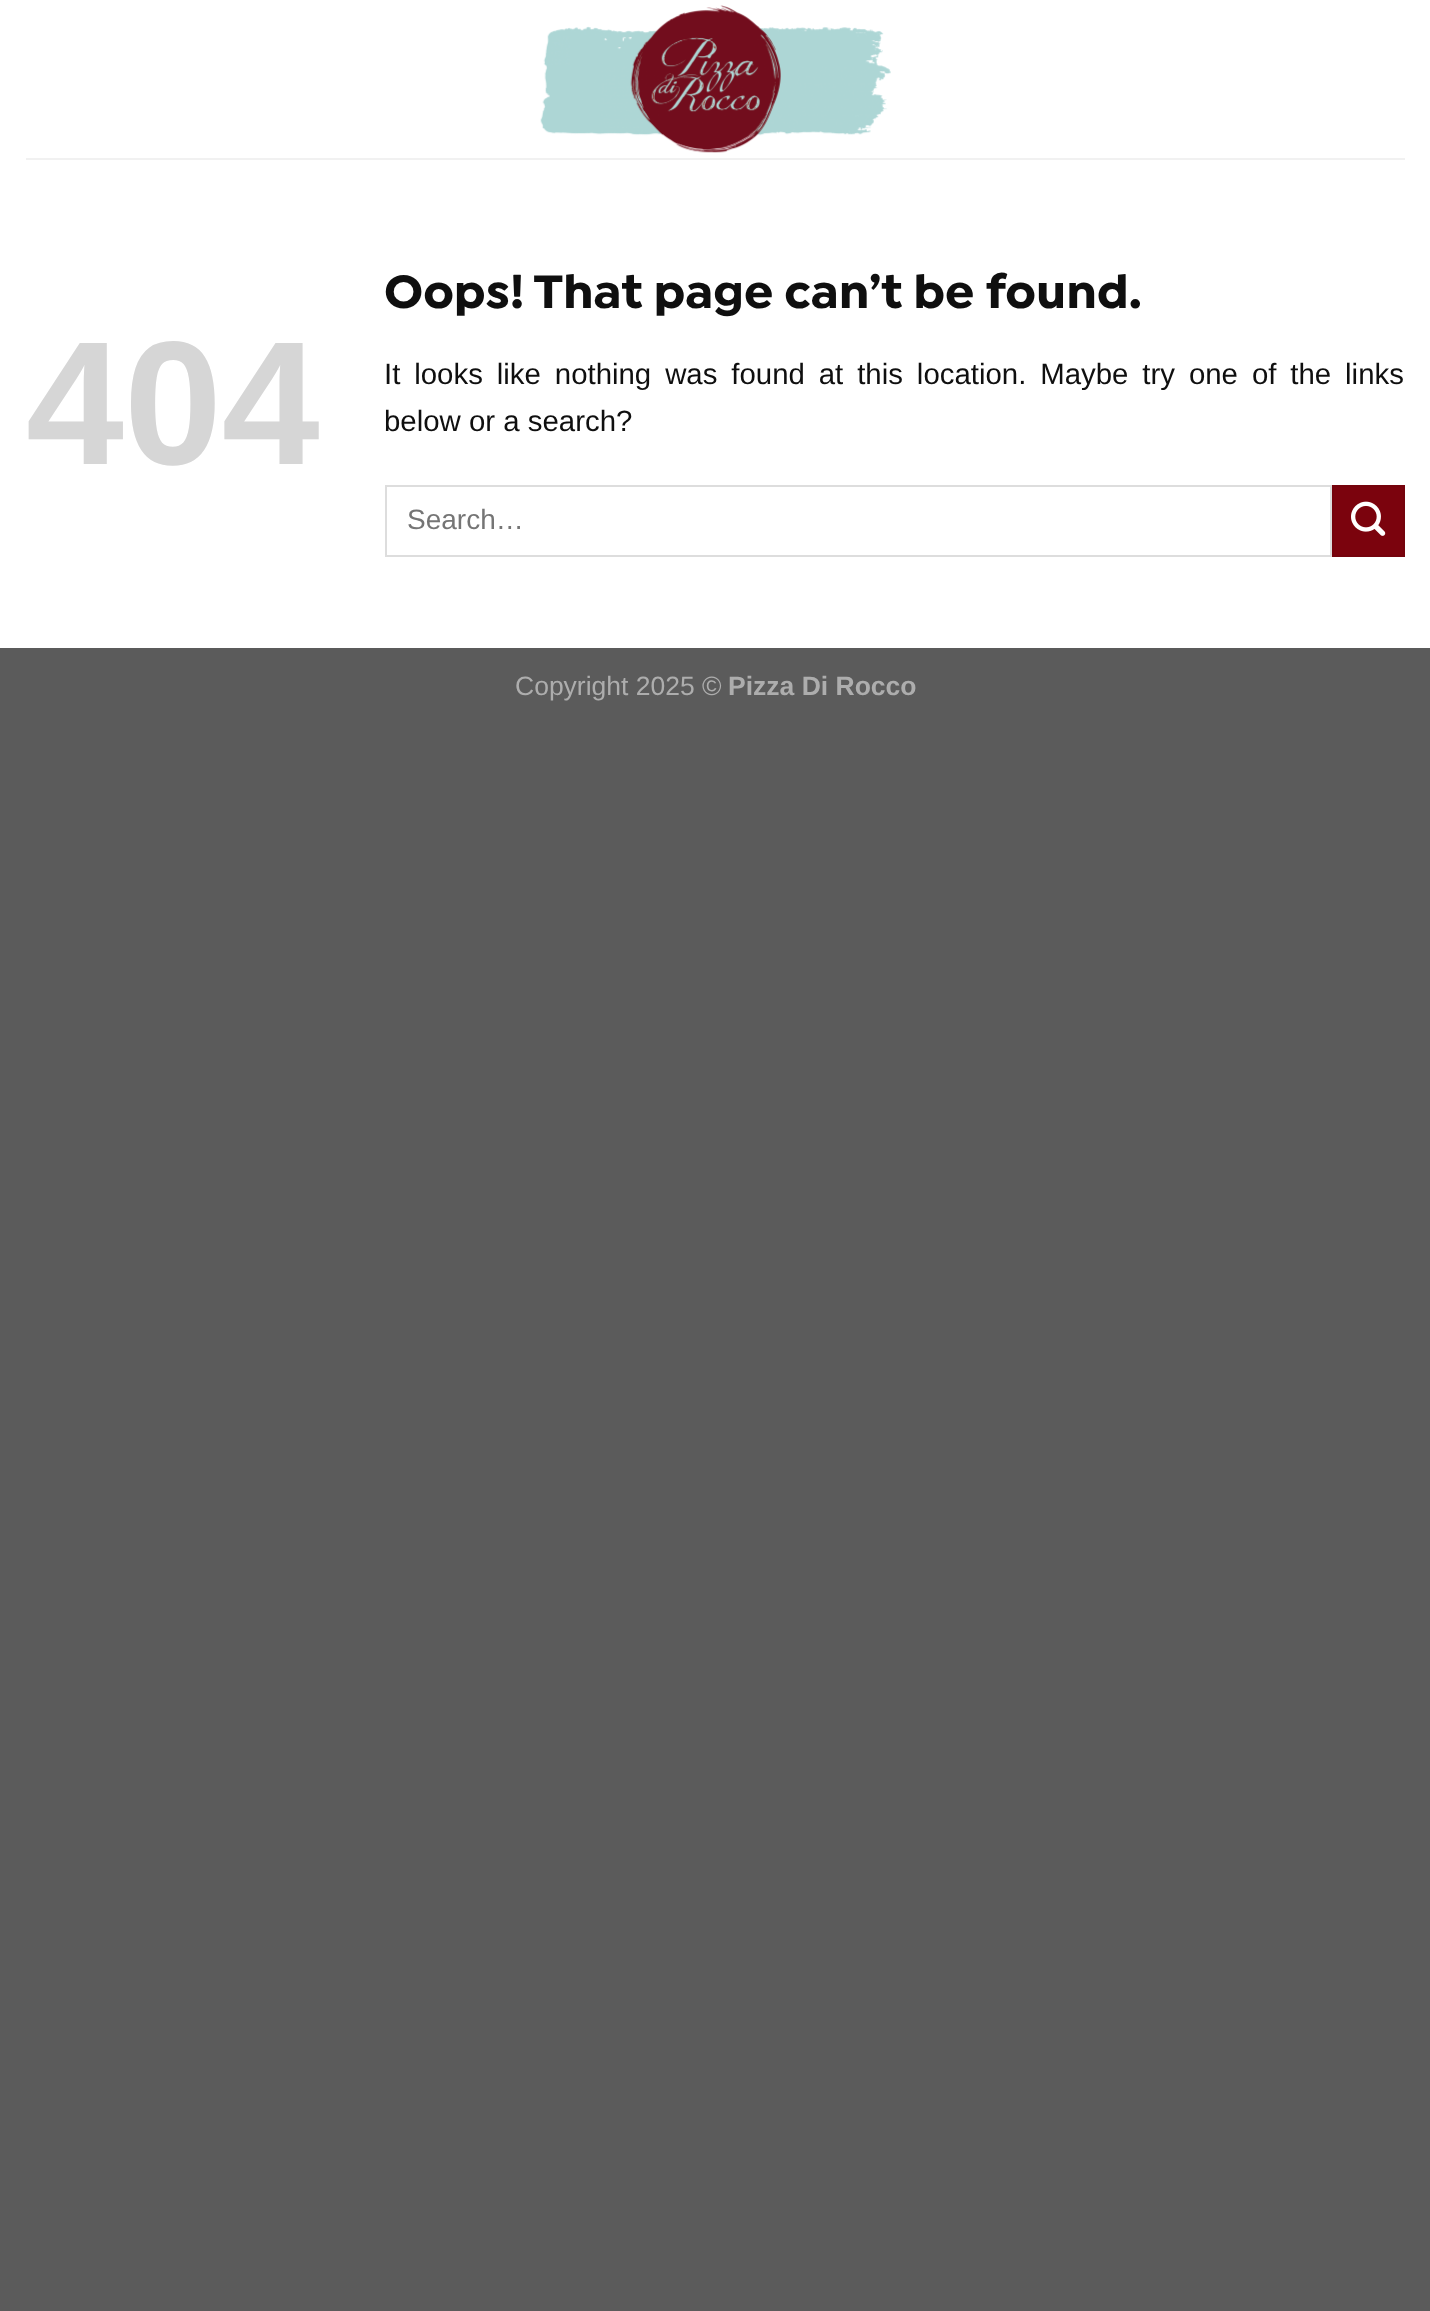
<!DOCTYPE html>
<meta charset="utf-8">
<style>body { margin: 0 } canvas { display: block }</style>
<canvas id="canvas" width="1430" height="2311"></canvas>
<img id="img1" src="images/1.png" hidden>
<img id="img2" src="images/2.png" hidden>
<script>
window.onload = function () {
    const canvas = document.getElementById('canvas');
    const context = canvas.getContext('2d');
    context.miterLimit = 4;
    context.fontKerning = 'normal';

    context.fillStyle = 'rgb(91, 91, 91)';
    context.fillRect(0, 0, 1430, 2311);
    context.fillStyle = 'rgb(255, 255, 255)';
    context.fillRect(0, 0, 1430, 648);
    context.drawImage(document.getElementById('img1'), 540, 5, 351, 148);
    context.fillStyle = 'rgb(241, 241, 241)';
    context.fillRect(26, 158, 1379, 2);
    context.strokeStyle = 'rgb(221, 221, 221)';
    context.lineWidth = 2;
    context.strokeRect(386, 486, 945, 70);
    context.fillStyle = 'rgb(123, 3, 13)';
    context.beginPath();
    context.rect(1333, 486, 71, 70);
    context.fill();
    context.strokeStyle = 'rgb(117, 3, 12)';
    context.stroke();
    context.drawImage(document.getElementById('img2'), 1351, 501, 35, 35);
    context.font = 'bold 176px Liberation Sans';
    context.fillStyle = 'rgb(214, 214, 214)';
    context.fillText('404', 26, 464);
    context.font = 'bold 50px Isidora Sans';
    context.fillStyle = 'rgb(15, 15, 15)';
    context.fillText('Oops! That page can’t be found.', 384, 308);
    context.wordSpacing = '5.75px';
    context.font = '29.4px Liberation Sans';
    context.fillText('It looks like nothing was found at this location. Maybe try one of the links', 384, 384);
    context.wordSpacing = '0px';
    context.fillText('below or a search?', 384, 431);
    context.font = '28px Liberation Sans';
    context.fillStyle = 'rgb(117, 117, 117)';
    context.fillText('Search…', 407, 529);
    context.font = '26.5px Liberation Sans';
    context.fillStyle = 'rgb(173, 173, 173)';
    context.fillText('Copyright 2025 ©', 515, 695);
    context.font = 'bold 26.5px Liberation Sans';
    context.fillText('Pizza Di Rocco', 728, 695);
};
</script>
